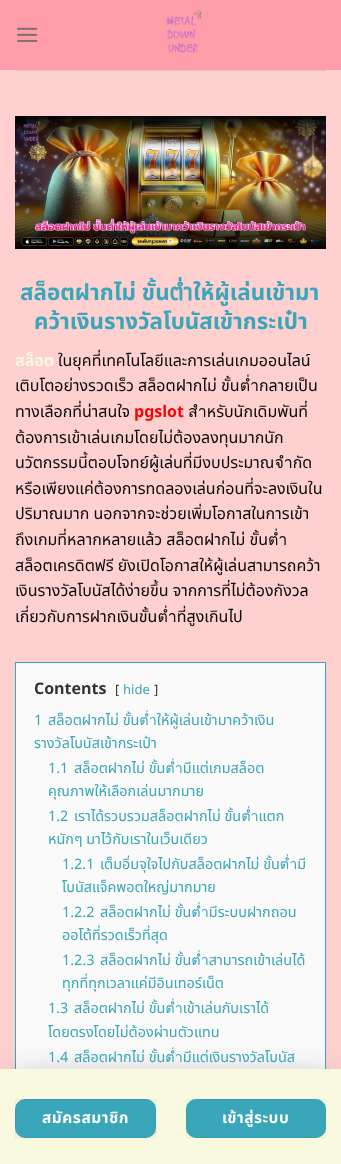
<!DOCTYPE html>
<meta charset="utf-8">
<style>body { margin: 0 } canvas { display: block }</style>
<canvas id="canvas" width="341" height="1164"></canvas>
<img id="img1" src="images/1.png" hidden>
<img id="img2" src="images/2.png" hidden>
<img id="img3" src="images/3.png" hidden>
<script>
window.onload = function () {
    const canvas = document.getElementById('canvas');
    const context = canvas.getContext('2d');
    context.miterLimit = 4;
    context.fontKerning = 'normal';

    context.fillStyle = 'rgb(255, 208, 208)';
    context.fillRect(0, 0, 341, 1164);
    context.fillStyle = 'rgb(255, 158, 170)';
    context.fillRect(0, 0, 341, 70);
    context.drawImage(document.getElementById('img1'), 17, 27, 21, 15);
    context.drawImage(document.getElementById('img2'), 166, 10, 36, 43);
    context.fillStyle = 'rgb(231, 188, 188)';
    context.fillRect(15, 70, 311, 1);
    context.drawImage(document.getElementById('img3'), 15, 116, 311, 133);
    context.fillStyle = 'rgb(250, 250, 250)';
    context.fillRect(16, 663, 309, 406);
    context.strokeStyle = 'rgb(58, 166, 185)';
    context.strokeRect(15.5, 662.5, 310, 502);
    context.fillStyle = 'rgba(0, 0, 0, 0.2)';
    context.filter = 'blur(14.5px)';
    context.beginPath();
    context.rect(12, 1073, 317, 71);
    context.fill();
    context.filter = 'none';
    context.fillStyle = 'rgb(249, 249, 224)';
    context.fillRect(0, 1069, 341, 95);
    context.fillStyle = 'rgb(58, 166, 185)';
    context.beginPath();
    context.roundRect(15, 1099, 141, 39, 10);
    context.fill();
    context.strokeStyle = 'rgba(0, 0, 0, 0.05)';
    context.strokeRect(15.5, 1099.5, 140, 38);
    context.beginPath();
    context.roundRect(186, 1099, 140, 39, 10);
    context.fill();
    context.strokeRect(186.5, 1099.5, 139, 38);
    context.font = 'bold 22.4px Noto Sans Thai';
    context.fillText('สล็อตฝากไม่ ขั้นต่ำให้ผู้เล่นเข้ามา', 20, 300);
    context.fillText('คว้าเงินรางวัลโบนัสเข้ากระเป๋า', 34, 329);
    context.font = 'bold 16px Noto Sans Thai';
    context.fillStyle = 'rgb(249, 249, 224)';
    context.fillText('สล็อต', 15, 366);
    context.font = '16px Noto Sans Thai';
    context.fillStyle = 'rgb(10, 10, 10)';
    context.fillText('ในยุคที่เทคโนโลยีและการเล่นเกมออนไลน์', 58, 366);
    context.fillText('เติบโตอย่างรวดเร็ว สล็อตฝากไม่ ขั้นต่ำกลายเป็น', 15, 391);
    context.fillText('ทางเลือกที่น่าสนใจ', 15, 417);
    context.font = 'bold 16px Noto Sans Thai';
    context.fillStyle = 'rgb(255, 0, 0)';
    context.fillText('pgslot', 134, 417);
    context.font = '16px Noto Sans Thai';
    context.fillStyle = 'rgb(10, 10, 10)';
    context.fillText('สำหรับนักเดิมพันที่', 188, 417);
    context.fillText('ต้องการเข้าเล่นเกมโดยไม่ต้องลงทุนมากนัก', 15, 443);
    context.fillText('นวัตกรรมนี้ตอบโจทย์ผู้เล่นที่มีงบประมาณจำกัด', 15, 468);
    context.fillText('หรือเพียงแค่ต้องการทดลองเล่นก่อนที่จะลงเงินใน', 15, 494);
    context.fillText('ปริมาณมาก นอกจากจะช่วยเพิ่มโอกาสในการเข้า', 15, 519);
    context.fillText('ถึงเกมที่หลากหลายแล้ว สล็อตฝากไม่ ขั้นต่ำ', 15, 545);
    context.fillText('สล็อตเครดิตฟรี ยังเปิดโอกาสให้ผู้เล่นสามารถคว้า', 15, 571);
    context.fillText('เงินรางวัลโบนัสได้ง่ายขึ้น จากการที่ไม่ต้องกังวล', 15, 596);
    context.fillText('เกี่ยวกับการฝากเงินขั้นต่ำที่สูงเกินไป', 15, 622);
    context.font = 'bold 16px Noto Sans Thai';
    context.fillStyle = 'rgb(51, 51, 51)';
    context.fillText('Contents', 34, 694);
    context.font = '13px Noto Sans Thai';
    context.fillText('[', 115, 694);
    context.fillStyle = 'rgb(58, 166, 185)';
    context.fillText('hide', 123, 694);
    context.fillStyle = 'rgb(51, 51, 51)';
    context.fillText(']', 154, 694);
    context.font = '14.4px Noto Sans Thai';
    context.fillStyle = 'rgb(58, 166, 185)';
    context.fillText('1', 34, 725);
    context.fillText('สล็อตฝากไม่ ขั้นต่ำให้ผู้เล่นเข้ามาคว้าเงิน', 48, 725);
    context.fillText('รางวัลโบนัสเข้ากระเป๋า', 34, 748);
    context.fillText('1.1', 48, 773);
    context.fillText('สล็อตฝากไม่ ขั้นต่ำมีแต่เกมสล็อต', 74, 773);
    context.fillText('คุณภาพให้เลือกเล่นมากมาย', 48, 796);
    context.fillText('1.2', 48, 821);
    context.fillText('เราได้รวบรวมสล็อตฝากไม่ ขั้นต่ำแตก', 74, 821);
    context.fillText('หนักๆ มาไว้กับเราในเว็บเดียว', 48, 844);
    context.fillText('1.2.1', 62, 869);
    context.fillText('เต็มอิ่มจุใจไปกับสล็อตฝากไม่ ขั้นต่ำมี', 100, 869);
    context.fillText('โบนัสแจ็คพอตใหญ่มากมาย', 62, 892);
    context.fillText('1.2.2', 62, 917);
    context.fillText('สล็อตฝากไม่ ขั้นต่ำมีระบบฝากถอน', 100, 917);
    context.fillText('ออโต้ที่รวดเร็วที่สุด', 62, 940);
    context.fillText('1.2.3', 62, 965);
    context.fillText('สล็อตฝากไม่ ขั้นต่ำสามารถเข้าเล่นได้', 100, 965);
    context.fillText('ทุกที่ทุกเวลาแค่มีอินเทอร์เน็ต', 62, 988);
    context.fillText('1.3', 48, 1013);
    context.fillText('สล็อตฝากไม่ ขั้นต่ำเข้าเล่นกับเราได้', 74, 1013);
    context.fillText('โดยตรงโดยไม่ต้องผ่านตัวแทน', 48, 1037);
    context.fillText('1.4', 48, 1062);
    context.fillText('สล็อตฝากไม่ ขั้นต่ำมีแต่เงินรางวัลโบนัส', 74, 1062);
    context.letterSpacing = '0.5px';
    context.font = 'bold 15.5px Noto Sans Thai';
    context.fillStyle = 'rgb(255, 255, 255)';
    context.fillText('สมัครสมาชิก', 42, 1123);
    context.fillText('เข้าสู่ระบบ', 222, 1123);
};
</script>
